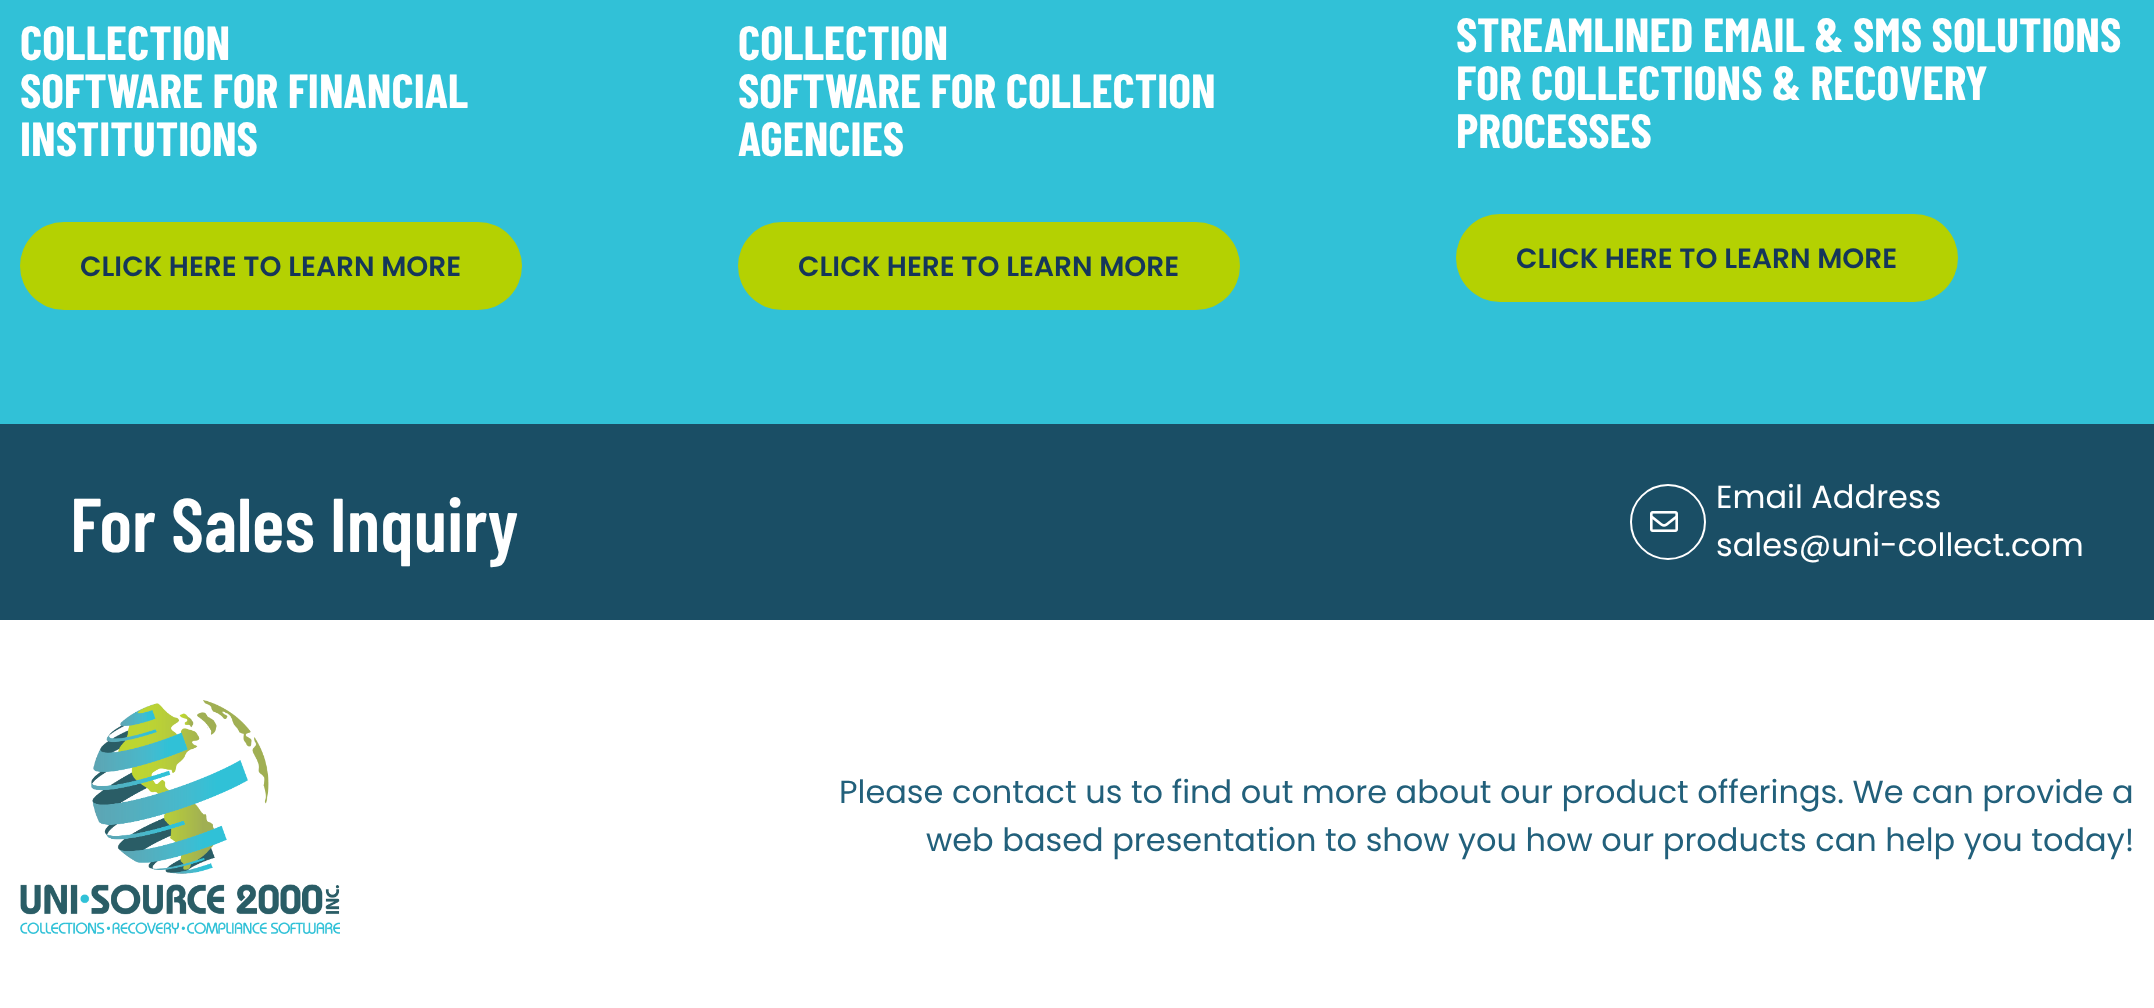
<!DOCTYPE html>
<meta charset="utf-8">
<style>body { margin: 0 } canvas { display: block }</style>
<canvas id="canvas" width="2154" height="1008"></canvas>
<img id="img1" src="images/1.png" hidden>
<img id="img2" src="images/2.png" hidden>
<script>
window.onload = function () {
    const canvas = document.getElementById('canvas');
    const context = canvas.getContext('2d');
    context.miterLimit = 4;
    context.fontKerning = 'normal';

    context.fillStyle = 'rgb(255, 255, 255)';
    context.fillRect(0, 0, 2154, 1008);
    context.fillStyle = 'rgb(49, 193, 215)';
    context.fillRect(0, 0, 2154, 424);
    context.fillStyle = 'rgb(180, 209, 2)';
    context.beginPath();
    context.roundRect(20, 222, 502, 88, 44);
    context.fill();
    context.beginPath();
    context.roundRect(738, 222, 502, 88, 44);
    context.fill();
    context.beginPath();
    context.roundRect(1456, 214, 502, 88, 44);
    context.fill();
    context.fillStyle = 'rgb(26, 78, 101)';
    context.fillRect(0, 424, 2154, 196);
    context.beginPath();
    context.arc(1668, 522, 37, 0, 2 * Math.PI);
    context.strokeStyle = 'rgb(255, 255, 255)';
    context.lineWidth = 2;
    context.stroke();
    context.drawImage(document.getElementById('img1'), 1650, 511, 28, 21);
    context.drawImage(document.getElementById('img2'), 20, 700, 320, 234);
    context.font = 'bold 48px Barlow Condensed';
    context.fillStyle = 'rgb(255, 255, 255)';
    context.fillText('COLLECTION', 20, 60);
    context.fillText('SOFTWARE FOR FINANCIAL', 20, 108);
    context.fillText('INSTITUTIONS', 20, 156);
    context.font = '600 28px Poppins';
    context.fillStyle = 'rgb(21, 54, 90)';
    context.fillText('CLICK HERE TO LEARN MORE', 80, 276);
    context.font = 'bold 48px Barlow Condensed';
    context.fillStyle = 'rgb(255, 255, 255)';
    context.fillText('COLLECTION', 738, 60);
    context.fillText('SOFTWARE FOR COLLECTION', 738, 108);
    context.fillText('AGENCIES', 738, 156);
    context.font = '600 28px Poppins';
    context.fillStyle = 'rgb(21, 54, 90)';
    context.fillText('CLICK HERE TO LEARN MORE', 798, 276);
    context.font = 'bold 48px Barlow Condensed';
    context.fillStyle = 'rgb(255, 255, 255)';
    context.fillText('STREAMLINED EMAIL & SMS SOLUTIONS', 1456, 52);
    context.fillText('FOR COLLECTIONS & RECOVERY', 1456, 100);
    context.fillText('PROCESSES', 1456, 148);
    context.font = '600 28px Poppins';
    context.fillStyle = 'rgb(21, 54, 90)';
    context.fillText('CLICK HERE TO LEARN MORE', 1516, 268);
    context.font = '600 76px Barlow Condensed';
    context.fillStyle = 'rgb(255, 255, 255)';
    context.fillText('For Sales Inquiry', 70, 552);
    context.font = '32px Poppins';
    context.fillText('Email Address', 1716, 508);
    context.fillText('sales@uni-collect.com', 1716, 556);
    context.fillStyle = 'rgb(34, 96, 123)';
    context.fillText('Please contact us to find out more about our product offerings. We can provide a', 839, 803);
    context.fillText('web based presentation to show you how our products can help you today!', 926, 851);
};
</script>
